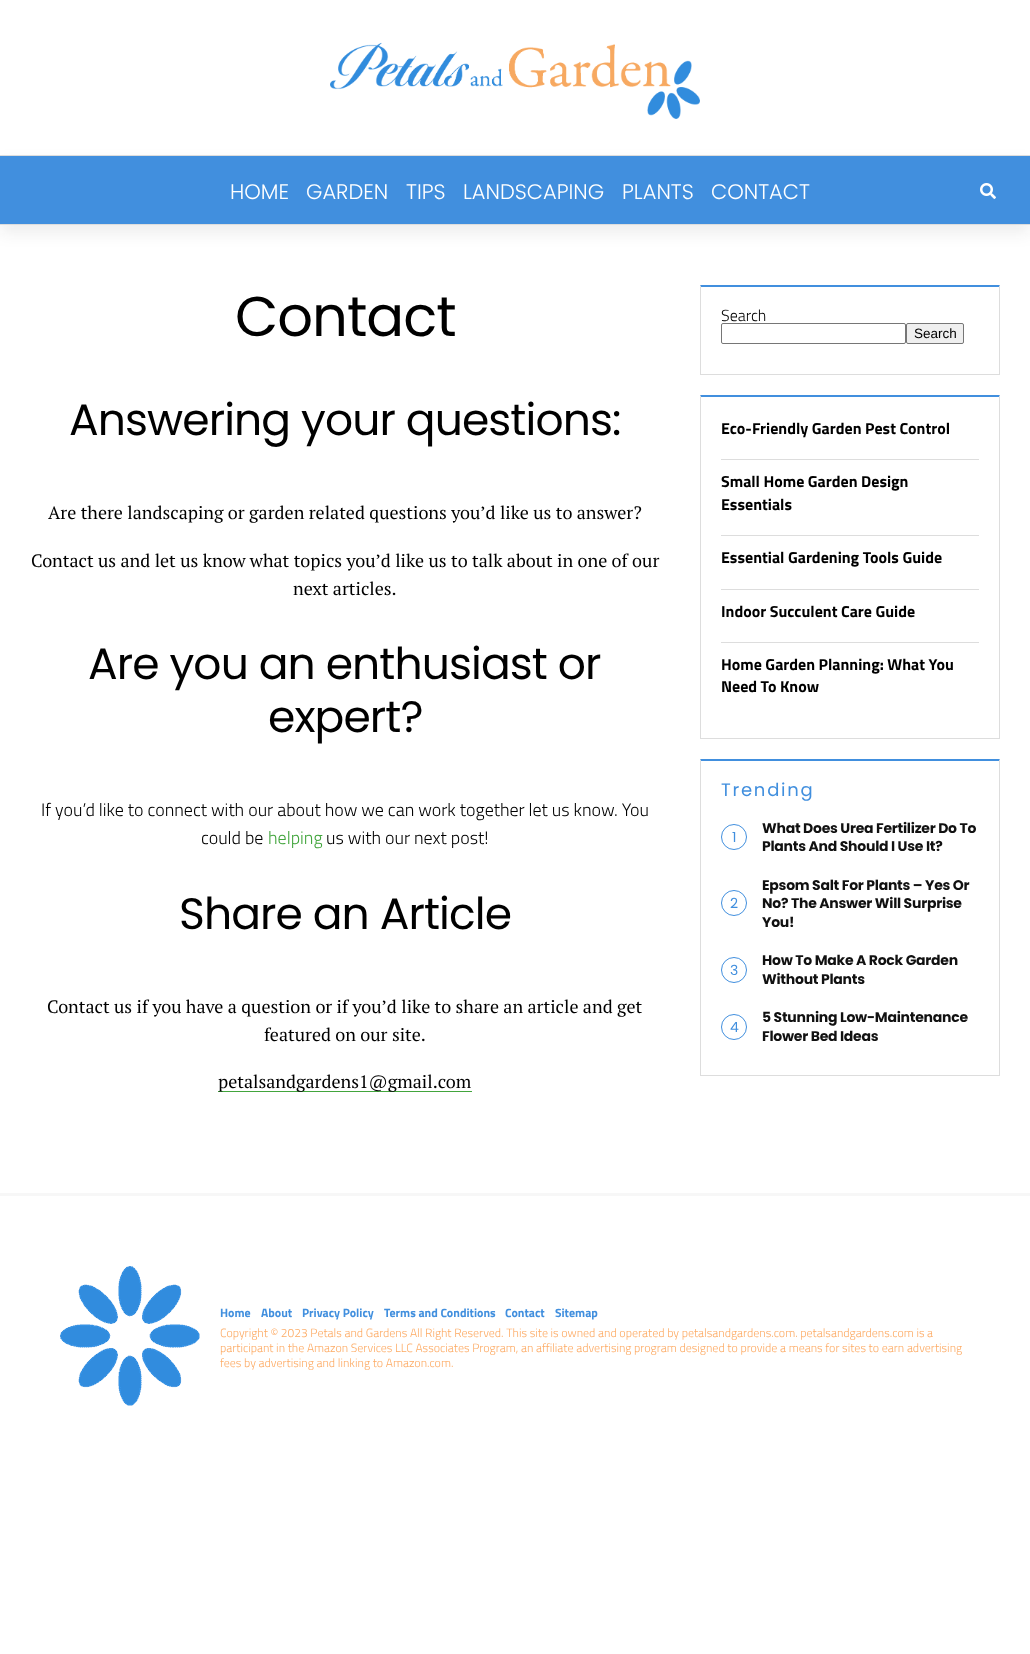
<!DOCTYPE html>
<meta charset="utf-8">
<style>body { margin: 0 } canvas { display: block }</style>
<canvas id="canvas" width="1030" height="1654"></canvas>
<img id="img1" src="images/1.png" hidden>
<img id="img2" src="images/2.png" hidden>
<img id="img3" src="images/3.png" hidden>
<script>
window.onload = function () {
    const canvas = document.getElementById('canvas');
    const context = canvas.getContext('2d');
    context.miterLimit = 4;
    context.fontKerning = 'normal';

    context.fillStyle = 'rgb(255, 255, 255)';
    context.fillRect(0, 0, 1030, 1654);
    context.drawImage(document.getElementById('img1'), 330, 42, 370, 77);
    context.fillStyle = 'rgba(21, 21, 30, 0.08)';
    context.filter = 'blur(8px)';
    context.beginPath();
    context.rect(0, 163, 1030, 70);
    context.fill();
    context.filter = 'none';
    context.fillStyle = 'rgb(65, 143, 222)';
    context.fillRect(0, 156, 1030, 68);
    context.fillStyle = 'rgb(221, 221, 221)';
    context.fillRect(0, 155, 1030, 1);
    context.fillRect(0, 224, 1030, 1);
    context.drawImage(document.getElementById('img2'), 980, 183, 16, 16);
    context.fillStyle = 'rgb(66, 165, 61)';
    context.fillRect(218, 1091, 254, 1);
    context.fillStyle = 'rgb(65, 143, 222)';
    context.beginPath();
    context.moveTo(700, 285);
    context.lineTo(1000, 285);
    context.lineTo(999, 287);
    context.lineTo(701, 287);
    context.closePath();
    context.fill();
    context.fillStyle = 'rgb(221, 221, 221)';
    context.beginPath();
    context.moveTo(1000, 285);
    context.lineTo(1000, 375);
    context.lineTo(999, 374);
    context.lineTo(999, 287);
    context.closePath();
    context.fill();
    context.fillRect(700, 374, 300, 1);
    context.beginPath();
    context.moveTo(700, 375);
    context.lineTo(700, 285);
    context.lineTo(701, 287);
    context.lineTo(701, 374);
    context.closePath();
    context.fill();
    context.beginPath();
    context.roundRect(721.5, 323.5, 184, 20, 1.5);
    context.strokeStyle = 'rgb(118, 118, 118)';
    context.stroke();
    context.fillStyle = 'rgb(239, 239, 239)';
    context.beginPath();
    context.roundRect(906.5, 323.5, 57, 20, 1.5);
    context.fill();
    context.stroke();
    context.fillStyle = 'rgb(65, 143, 222)';
    context.beginPath();
    context.moveTo(700, 395);
    context.lineTo(1000, 395);
    context.lineTo(999, 397);
    context.lineTo(701, 397);
    context.closePath();
    context.fill();
    context.fillStyle = 'rgb(221, 221, 221)';
    context.beginPath();
    context.moveTo(1000, 395);
    context.lineTo(1000, 739);
    context.lineTo(999, 738);
    context.lineTo(999, 397);
    context.closePath();
    context.fill();
    context.fillRect(700, 738, 300, 1);
    context.beginPath();
    context.moveTo(700, 739);
    context.lineTo(700, 395);
    context.lineTo(701, 397);
    context.lineTo(701, 738);
    context.closePath();
    context.fill();
    context.fillRect(721, 459, 258, 1);
    context.fillRect(721, 535, 258, 1);
    context.fillRect(721, 589, 258, 1);
    context.fillRect(721, 642, 258, 1);
    context.fillStyle = 'rgb(65, 143, 222)';
    context.beginPath();
    context.moveTo(700, 759);
    context.lineTo(1000, 759);
    context.lineTo(999, 761);
    context.lineTo(701, 761);
    context.closePath();
    context.fill();
    context.fillStyle = 'rgb(221, 221, 221)';
    context.beginPath();
    context.moveTo(1000, 759);
    context.lineTo(1000, 1076);
    context.lineTo(999, 1075);
    context.lineTo(999, 761);
    context.closePath();
    context.fill();
    context.fillRect(700, 1075, 300, 1);
    context.beginPath();
    context.moveTo(700, 1076);
    context.lineTo(700, 759);
    context.lineTo(701, 761);
    context.lineTo(701, 1075);
    context.closePath();
    context.fill();
    context.beginPath();
    context.arc(734, 837, 12.5, 0, 2 * Math.PI);
    context.strokeStyle = 'rgb(65, 143, 222)';
    context.stroke();
    context.beginPath();
    context.arc(734, 903, 12.5, 0, 2 * Math.PI);
    context.stroke();
    context.beginPath();
    context.arc(734, 970, 12.5, 0, 2 * Math.PI);
    context.stroke();
    context.beginPath();
    context.arc(734, 1027, 12.5, 0, 2 * Math.PI);
    context.stroke();
    context.fillStyle = 'rgb(247, 247, 247)';
    context.fillRect(0, 1193, 1030, 3);
    context.drawImage(document.getElementById('img3'), 60, 1266, 140, 140);
    context.font = '300 21px Poppins';
    context.fillStyle = 'rgb(255, 255, 255)';
    context.fillText('HOME', 230, 199);
    context.fillText('GARDEN', 306, 199);
    context.fillText('TIPS', 406, 199);
    context.fillText('LANDSCAPING', 463, 199);
    context.fillText('PLANTS', 622, 199);
    context.fillText('CONTACT', 711, 199);
    context.letterSpacing = '-1px';
    context.font = '56px Poppins';
    context.fillStyle = 'rgb(0, 0, 0)';
    context.fillText('Contact', 235, 336);
    context.letterSpacing = '-0.9px';
    context.font = '44px Poppins';
    context.fillText('Answering your questions:', 69, 435);
    context.letterSpacing = '0px';
    context.font = '18px PT Serif';
    context.fillText('Are there landscaping or garden related questions you’d like us to answer?', 48, 519);
    context.fillText('Contact us and let us know what topics you’d like us to talk about in one of our', 31, 567);
    context.fillText('next articles.', 293, 595);
    context.letterSpacing = '-0.9px';
    context.font = '44px Poppins';
    context.fillText('Are you an enthusiast or', 88, 679);
    context.fillText('expert?', 268, 732);
    context.letterSpacing = '0px';
    context.font = '300 18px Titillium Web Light';
    context.fillText('If you’d like to connect with our about how we can work together let us know. You', 41, 816);
    context.fillText('could be', 201, 844);
    context.fillStyle = 'rgb(66, 165, 61)';
    context.fillText('helping', 268, 844);
    context.fillStyle = 'rgb(0, 0, 0)';
    context.fillText('us with our next post!', 326, 844);
    context.letterSpacing = '-0.9px';
    context.font = '44px Poppins';
    context.fillText('Share an Article', 179, 929);
    context.letterSpacing = '0px';
    context.font = '18px PT Serif';
    context.fillText('Contact us if you have a question or if you’d like to share an article and get', 47, 1013);
    context.fillText('featured on our site.', 264, 1041);
    context.fillText('petalsandgardens1@gmail.com', 218, 1088);
    context.font = '300 16px Titillium Web Light';
    context.fillText('Search', 721, 321);
    context.font = '13.5px Liberation Sans';
    context.fillText('Search', 914, 338);
    context.font = 'bold 16px Titillium Web';
    context.fillText('Eco-Friendly Garden Pest Control', 721, 434);
    context.fillText('Small Home Garden Design', 721, 487);
    context.fillText('Essentials', 721, 510);
    context.fillText('Essential Gardening Tools Guide', 721, 563);
    context.fillText('Indoor Succulent Care Guide', 721, 617);
    context.fillText('Home Garden Planning: What You', 721, 670);
    context.fillText('Need To Know', 721, 692);
    context.letterSpacing = '1.75px';
    context.font = '18px Poppins';
    context.fillStyle = 'rgb(65, 143, 222)';
    context.fillText('Trending', 721, 796);
    context.letterSpacing = '0px';
    context.font = '14px Poppins';
    context.fillText('1', 732, 842);
    context.letterSpacing = '-0.25px';
    context.font = 'bold 14px Poppins';
    context.fillStyle = 'rgb(17, 17, 17)';
    context.fillText('What Does Urea Fertilizer Do To', 762, 833);
    context.fillText('Plants And Should I Use It?', 762, 851);
    context.letterSpacing = '0px';
    context.font = '14px Poppins';
    context.fillStyle = 'rgb(65, 143, 222)';
    context.fillText('2', 730, 908);
    context.letterSpacing = '-0.25px';
    context.font = 'bold 14px Poppins';
    context.fillStyle = 'rgb(17, 17, 17)';
    context.fillText('Epsom Salt For Plants – Yes Or', 762, 890);
    context.fillText('No? The Answer Will Surprise', 762, 908);
    context.fillText('You!', 762, 927);
    context.letterSpacing = '0px';
    context.font = '14px Poppins';
    context.fillStyle = 'rgb(65, 143, 222)';
    context.fillText('3', 730, 975);
    context.letterSpacing = '-0.25px';
    context.font = 'bold 14px Poppins';
    context.fillStyle = 'rgb(17, 17, 17)';
    context.fillText('How To Make A Rock Garden', 762, 965);
    context.fillText('Without Plants', 762, 984);
    context.letterSpacing = '0px';
    context.font = '14px Poppins';
    context.fillStyle = 'rgb(65, 143, 222)';
    context.fillText('4', 730, 1032);
    context.letterSpacing = '-0.25px';
    context.font = 'bold 14px Poppins';
    context.fillStyle = 'rgb(17, 17, 17)';
    context.fillText('5 Stunning Low-Maintenance', 762, 1022);
    context.fillText('Flower Bed Ideas', 762, 1041);
    context.letterSpacing = '0px';
    context.font = 'bold 12px Titillium Web';
    context.fillStyle = 'rgb(65, 143, 222)';
    context.fillText('Home', 220, 1317);
    context.fillText('About', 261, 1317);
    context.fillText('Privacy Policy', 302, 1317);
    context.fillText('Terms and Conditions', 384, 1317);
    context.fillText('Contact', 505, 1317);
    context.fillText('Sitemap', 555, 1317);
    context.font = '300 12px Titillium Web Light';
    context.fillStyle = 'rgb(253, 170, 99)';
    context.fillText('Copyright © 2023 Petals and Gardens All Right Reserved. This site is owned and operated by petalsandgardens.com. petalsandgardens.com is a', 220, 1337);
    context.fillText('participant in the Amazon Services LLC Associates Program, an affiliate advertising program designed to provide a means for sites to earn advertising', 220, 1352);
    context.fillText('fees by advertising and linking to Amazon.com.', 220, 1367);
};
</script>
